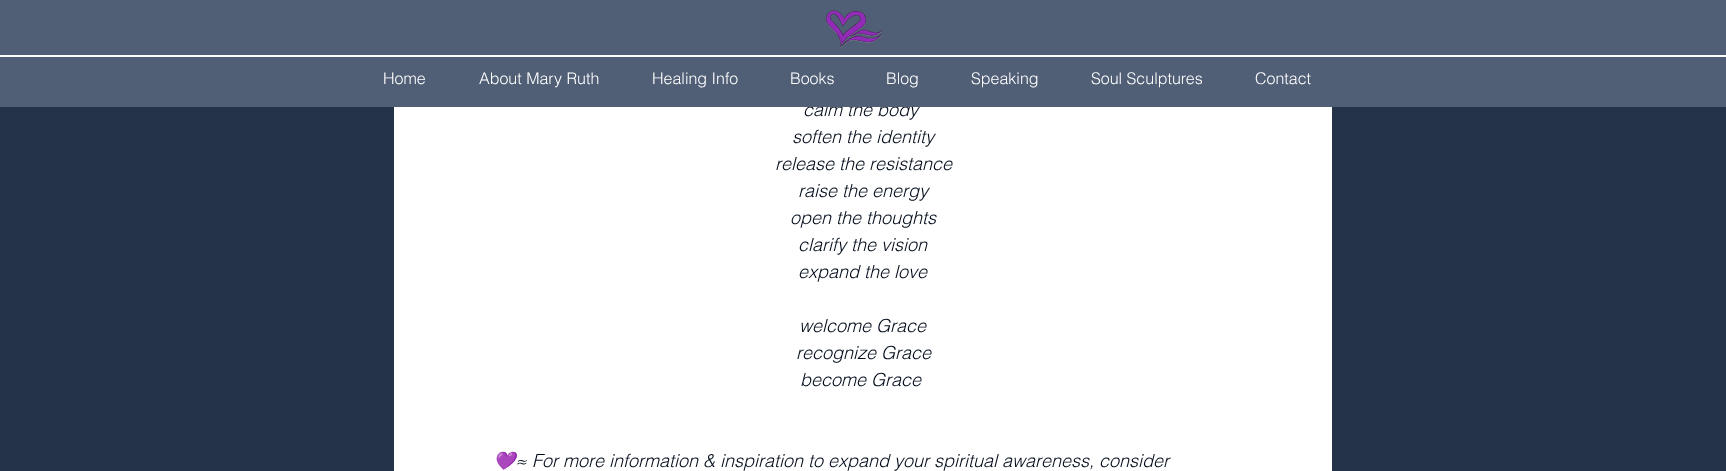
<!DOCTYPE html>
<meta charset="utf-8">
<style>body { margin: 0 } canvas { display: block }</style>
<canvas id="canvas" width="1726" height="471"></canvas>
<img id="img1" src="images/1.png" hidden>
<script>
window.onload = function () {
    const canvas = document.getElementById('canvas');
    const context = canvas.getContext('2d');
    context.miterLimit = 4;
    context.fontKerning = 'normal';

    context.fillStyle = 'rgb(37, 51, 72)';
    context.fillRect(0, 0, 1726, 471);
    context.fillStyle = 'rgb(255, 255, 255)';
    context.fillRect(394, 107, 938, 364);
    context.font = 'italic 300 18px helvetica';
    context.fillStyle = 'rgb(1, 11, 26)';
    context.fillText('calm the body', 803, 116);
    context.fillStyle = 'rgb(80, 95, 118)';
    context.fillRect(0, 0, 1726, 107);
    context.font = '300 16px helvetica';
    context.fillStyle = 'rgb(255, 255, 255)';
    context.fillText('Contact', 1255, 84);
    context.fillText('Soul Sculptures', 1091, 84);
    context.fillText('Speaking', 971, 84);
    context.fillText('Blog', 886, 84);
    context.fillText('Books', 790, 84);
    context.fillText('Healing Info', 652, 84);
    context.fillText('About Mary Ruth', 479, 84);
    context.fillText('Home', 383, 84);
    context.fillRect(0, 55, 1726, 2);
    context.drawImage(document.getElementById('img1'), 825, 10, 58, 38);
    context.font = 'italic 300 18px helvetica';
    context.fillStyle = 'rgb(1, 11, 26)';
    context.fillText('soften the identity', 792, 143);
    context.fillText('release the resistance', 775, 170);
    context.fillText('raise the energy', 798, 197);
    context.fillText('open the thoughts', 790, 224);
    context.fillText('clarify the vision', 798, 251);
    context.fillText('expand the love', 798, 278);
    context.fillText('welcome Grace', 799, 332);
    context.fillText('recognize Grace', 796, 359);
    context.fillText('become Grace', 800, 386);
    context.font = 'italic 18px Noto Color Emoji';
    context.fillText('💜', 493, 467);
    context.font = 'italic 300 18px helvetica';
    context.fillText('≈ For more information & inspiration to expand your spiritual awareness, consider', 515, 467);
};
</script>
